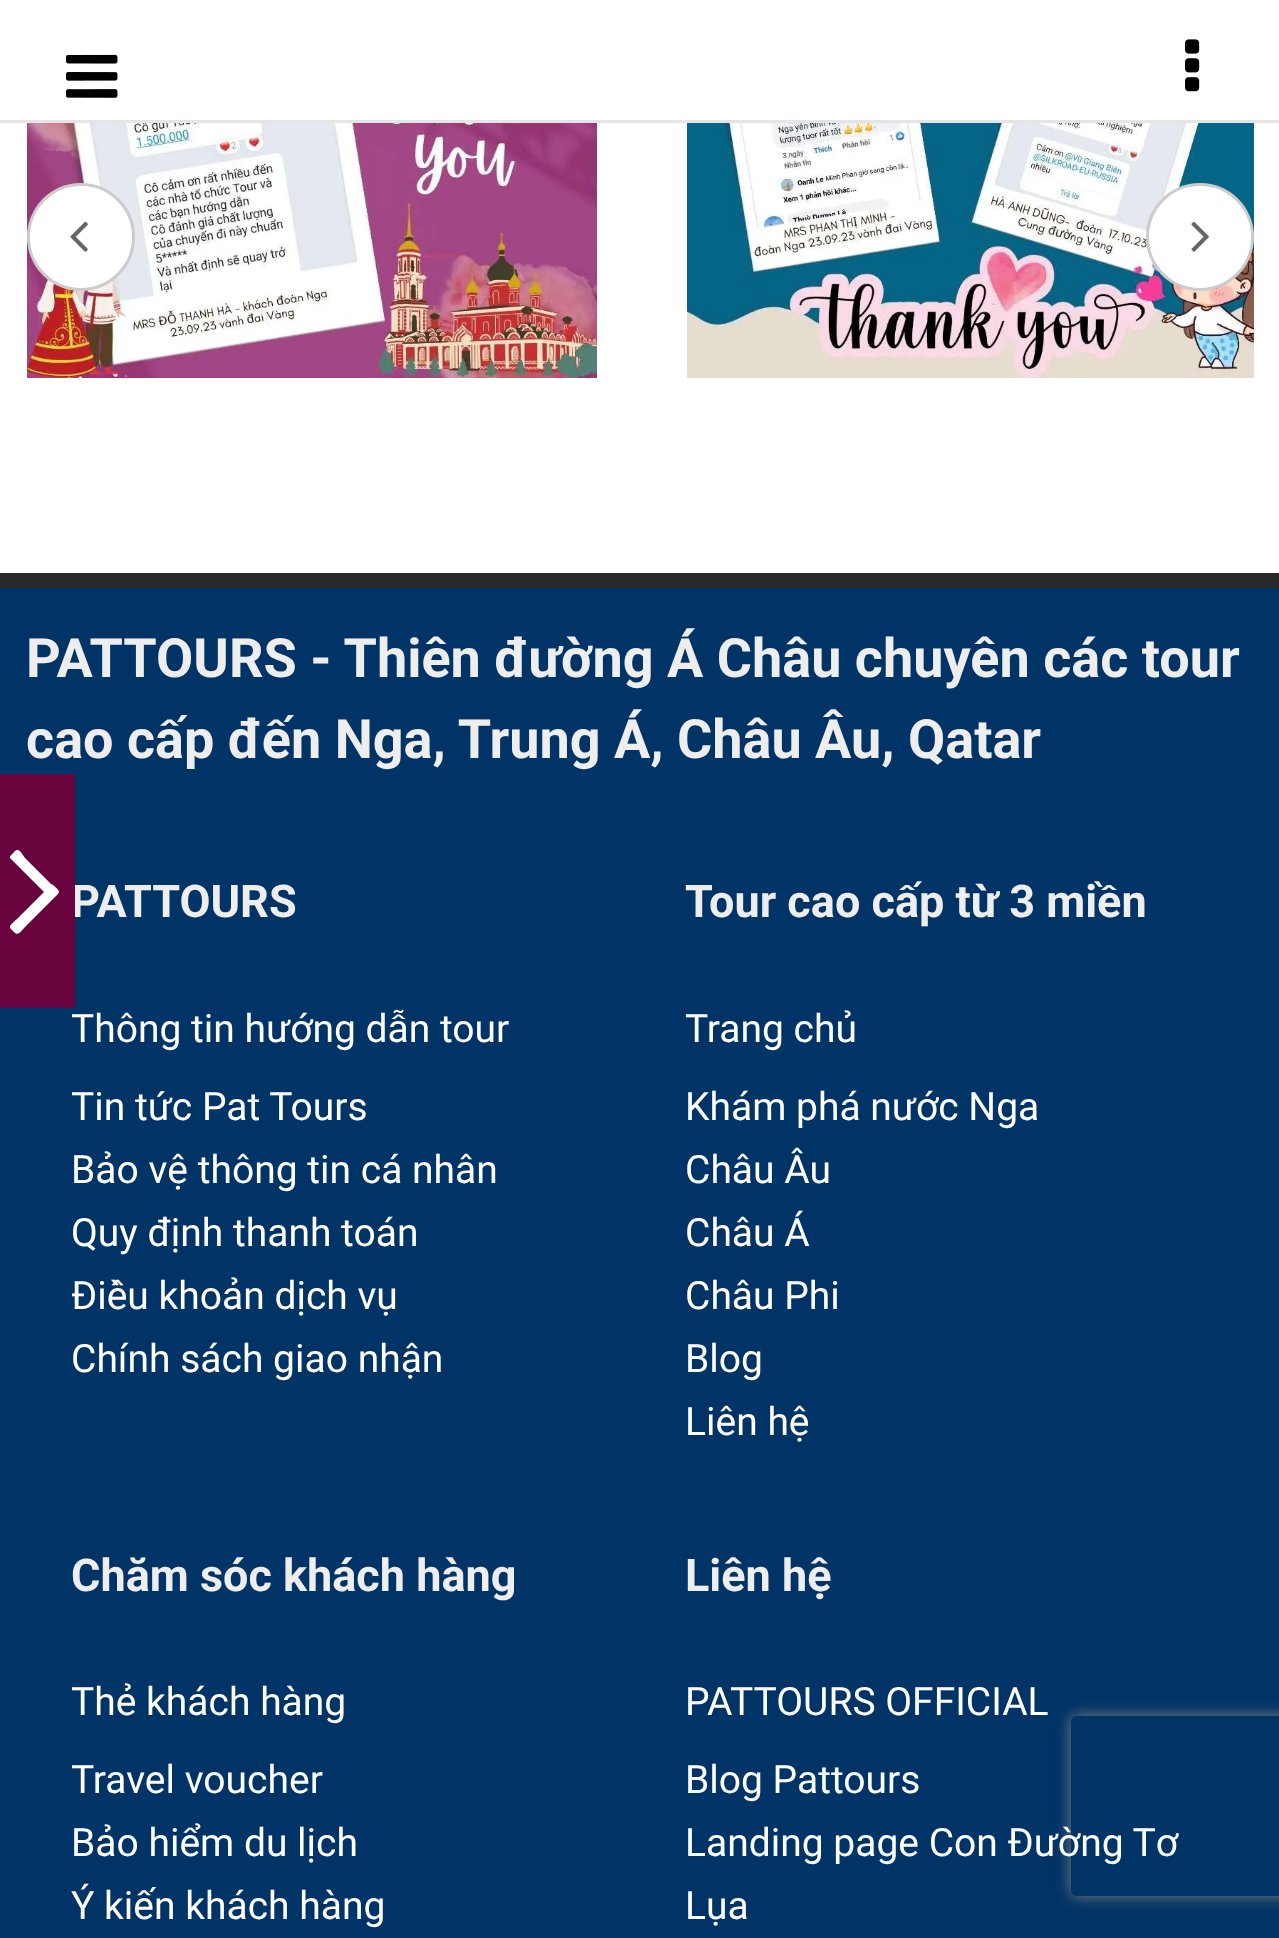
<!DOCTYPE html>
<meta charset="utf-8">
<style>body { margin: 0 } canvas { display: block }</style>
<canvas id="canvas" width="1279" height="1938"></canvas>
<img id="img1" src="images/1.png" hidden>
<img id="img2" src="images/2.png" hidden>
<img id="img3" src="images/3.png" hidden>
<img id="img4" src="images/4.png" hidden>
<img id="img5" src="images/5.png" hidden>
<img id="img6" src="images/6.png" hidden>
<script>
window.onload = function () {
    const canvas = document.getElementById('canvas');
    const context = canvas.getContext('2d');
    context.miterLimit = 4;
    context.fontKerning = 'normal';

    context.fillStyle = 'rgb(255, 255, 255)';
    context.fillRect(0, 0, 1279, 1938);
    context.drawImage(document.getElementById('img1'), 66, 54, 52, 44);
    context.fillStyle = 'rgb(230, 228, 228)';
    context.fillRect(0, 120, 1279, 3);
    context.drawImage(document.getElementById('img2'), 1185, 39, 15, 53);
    context.drawImage(document.getElementById('img3'), 27, 123, 570, 255);
    context.drawImage(document.getElementById('img4'), 687, 123, 567, 255);
    context.fillStyle = 'rgb(255, 255, 255)';
    context.beginPath();
    context.arc(81, 237, 54, 0, 2 * Math.PI);
    context.fill();
    context.beginPath();
    context.arc(81, 237, 52.5, 0, 2 * Math.PI);
    context.strokeStyle = 'rgba(0, 0, 0, 0.2)';
    context.lineWidth = 3;
    context.stroke();
    context.drawImage(document.getElementById('img5'), 70, 221, 18, 31);
    context.beginPath();
    context.arc(1200, 237, 54, 0, 2 * Math.PI);
    context.fill();
    context.beginPath();
    context.arc(1200, 237, 52.5, 0, 2 * Math.PI);
    context.stroke();
    context.drawImage(document.getElementById('img6'), 1191, 221, 18, 31);
    context.fillStyle = 'rgb(41, 41, 41)';
    context.fillRect(0, 573, 1279, 15);
    context.fillStyle = 'rgb(0, 51, 102)';
    context.fillRect(0, 588, 1279, 1350);
    context.save();
    context.beginPath();
    context.moveTo(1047, 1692);
    context.lineTo(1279, 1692);
    context.lineTo(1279, 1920);
    context.lineTo(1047, 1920);
    context.closePath();
    context.moveTo(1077, 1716);
    context.lineTo(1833, 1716);
    context.bezierCurveTo(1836.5, 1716, 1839, 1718.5, 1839, 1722);
    context.lineTo(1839, 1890);
    context.bezierCurveTo(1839, 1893.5, 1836.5, 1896, 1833, 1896);
    context.lineTo(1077, 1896);
    context.bezierCurveTo(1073.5, 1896, 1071, 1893.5, 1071, 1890);
    context.lineTo(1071, 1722);
    context.bezierCurveTo(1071, 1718.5, 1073.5, 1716, 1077, 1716);
    context.closePath();
    context.clip('evenodd');
    context.fillStyle = 'rgb(128, 128, 128)';
    context.filter = 'blur(7.5px)';
    context.beginPath();
    context.roundRect(1071, 1716, 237, 180, 6);
    context.fill();
    context.filter = 'none';
    context.restore();
    context.font = 'bold 54px Roboto';
    context.fillStyle = 'rgb(238, 238, 238)';
    context.fillText('PATTOURS - Thiên đường Á Châu chuyên các tour', 26, 677);
    context.fillText('cao cấp đến Nga, Trung Á, Châu Âu, Qatar', 26, 758);
    context.font = 'bold 45px Roboto';
    context.fillText('PATTOURS', 71, 917);
    context.save();
    context.beginPath();
    context.rect(72, 996, 522, 393);
    context.clip();
    context.font = '39px Roboto';
    context.fillStyle = 'rgb(255, 255, 255)';
    context.fillText('Thông tin hướng dẫn tour', 71, 1042);
    context.fillText('Tin tức Pat Tours', 71, 1120);
    context.restore();
    context.font = '39px Roboto';
    context.fillStyle = 'rgb(255, 255, 255)';
    context.fillText('Bảo vệ thông tin cá nhân', 71, 1183);
    context.fillText('Quy định thanh toán', 71, 1246);
    context.save();
    context.beginPath();
    context.rect(72, 996, 522, 393);
    context.clip();
    context.fillText('Điều khoản dịch vụ', 71, 1309);
    context.restore();
    context.fillText('Chính sách giao nhận', 71, 1372);
    context.font = 'bold 45px Roboto';
    context.fillStyle = 'rgb(238, 238, 238)';
    context.fillText('Tour cao cấp từ 3 miền', 685, 917);
    context.font = '39px Roboto';
    context.fillStyle = 'rgb(255, 255, 255)';
    context.fillText('Trang chủ', 685, 1042);
    context.fillText('Khám phá nước Nga', 685, 1120);
    context.fillText('Châu Âu', 685, 1183);
    context.fillText('Châu Á', 685, 1246);
    context.fillText('Châu Phi', 685, 1309);
    context.fillText('Blog', 685, 1372);
    context.fillText('Liên hệ', 685, 1435);
    context.font = 'bold 45px Roboto';
    context.fillStyle = 'rgb(238, 238, 238)';
    context.fillText('Chăm sóc khách hàng', 71, 1591);
    context.save();
    context.beginPath();
    context.rect(72, 1671, 522, 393);
    context.clip();
    context.font = '39px Roboto';
    context.fillStyle = 'rgb(255, 255, 255)';
    context.fillText('Thẻ khách hàng', 71, 1715);
    context.fillText('Travel voucher', 71, 1793);
    context.restore();
    context.font = '39px Roboto';
    context.fillStyle = 'rgb(255, 255, 255)';
    context.fillText('Bảo hiểm du lịch', 71, 1856);
    context.fillText('Ý kiến khách hàng', 71, 1919);
    context.font = 'bold 45px Roboto';
    context.fillStyle = 'rgb(238, 238, 238)';
    context.fillText('Liên hệ', 685, 1591);
    context.font = '39px Roboto';
    context.fillStyle = 'rgb(255, 255, 255)';
    context.fillText('PATTOURS OFFICIAL', 685, 1715);
    context.fillText('Blog Pattours', 685, 1793);
    context.fillText('Landing page Con Đường Tơ', 685, 1856);
    context.fillText('Lụa', 685, 1919);
    context.fillStyle = 'rgb(104, 3, 62)';
    context.fillRect(0, 774, 75, 234);
    context.fillStyle = 'rgb(255, 255, 255)';
    context.beginPath();
    context.moveTo(59, 892);
    context.lineTo(58, 894);
    context.lineTo(25, 927);
    context.bezierCurveTo(22, 930, 18, 937, 14, 932);
    context.lineTo(10, 928);
    context.bezierCurveTo(9, 925, 15, 921, 17, 919);
    context.lineTo(44, 892);
    context.lineTo(10, 858);
    context.bezierCurveTo(9, 856, 13, 854, 14, 852);
    context.bezierCurveTo(19, 847, 21, 853, 25, 858);
    context.lineTo(51, 884);
    context.bezierCurveTo(52, 884, 59, 889, 59, 892);
    context.closePath();
    context.fill();
};
</script>
